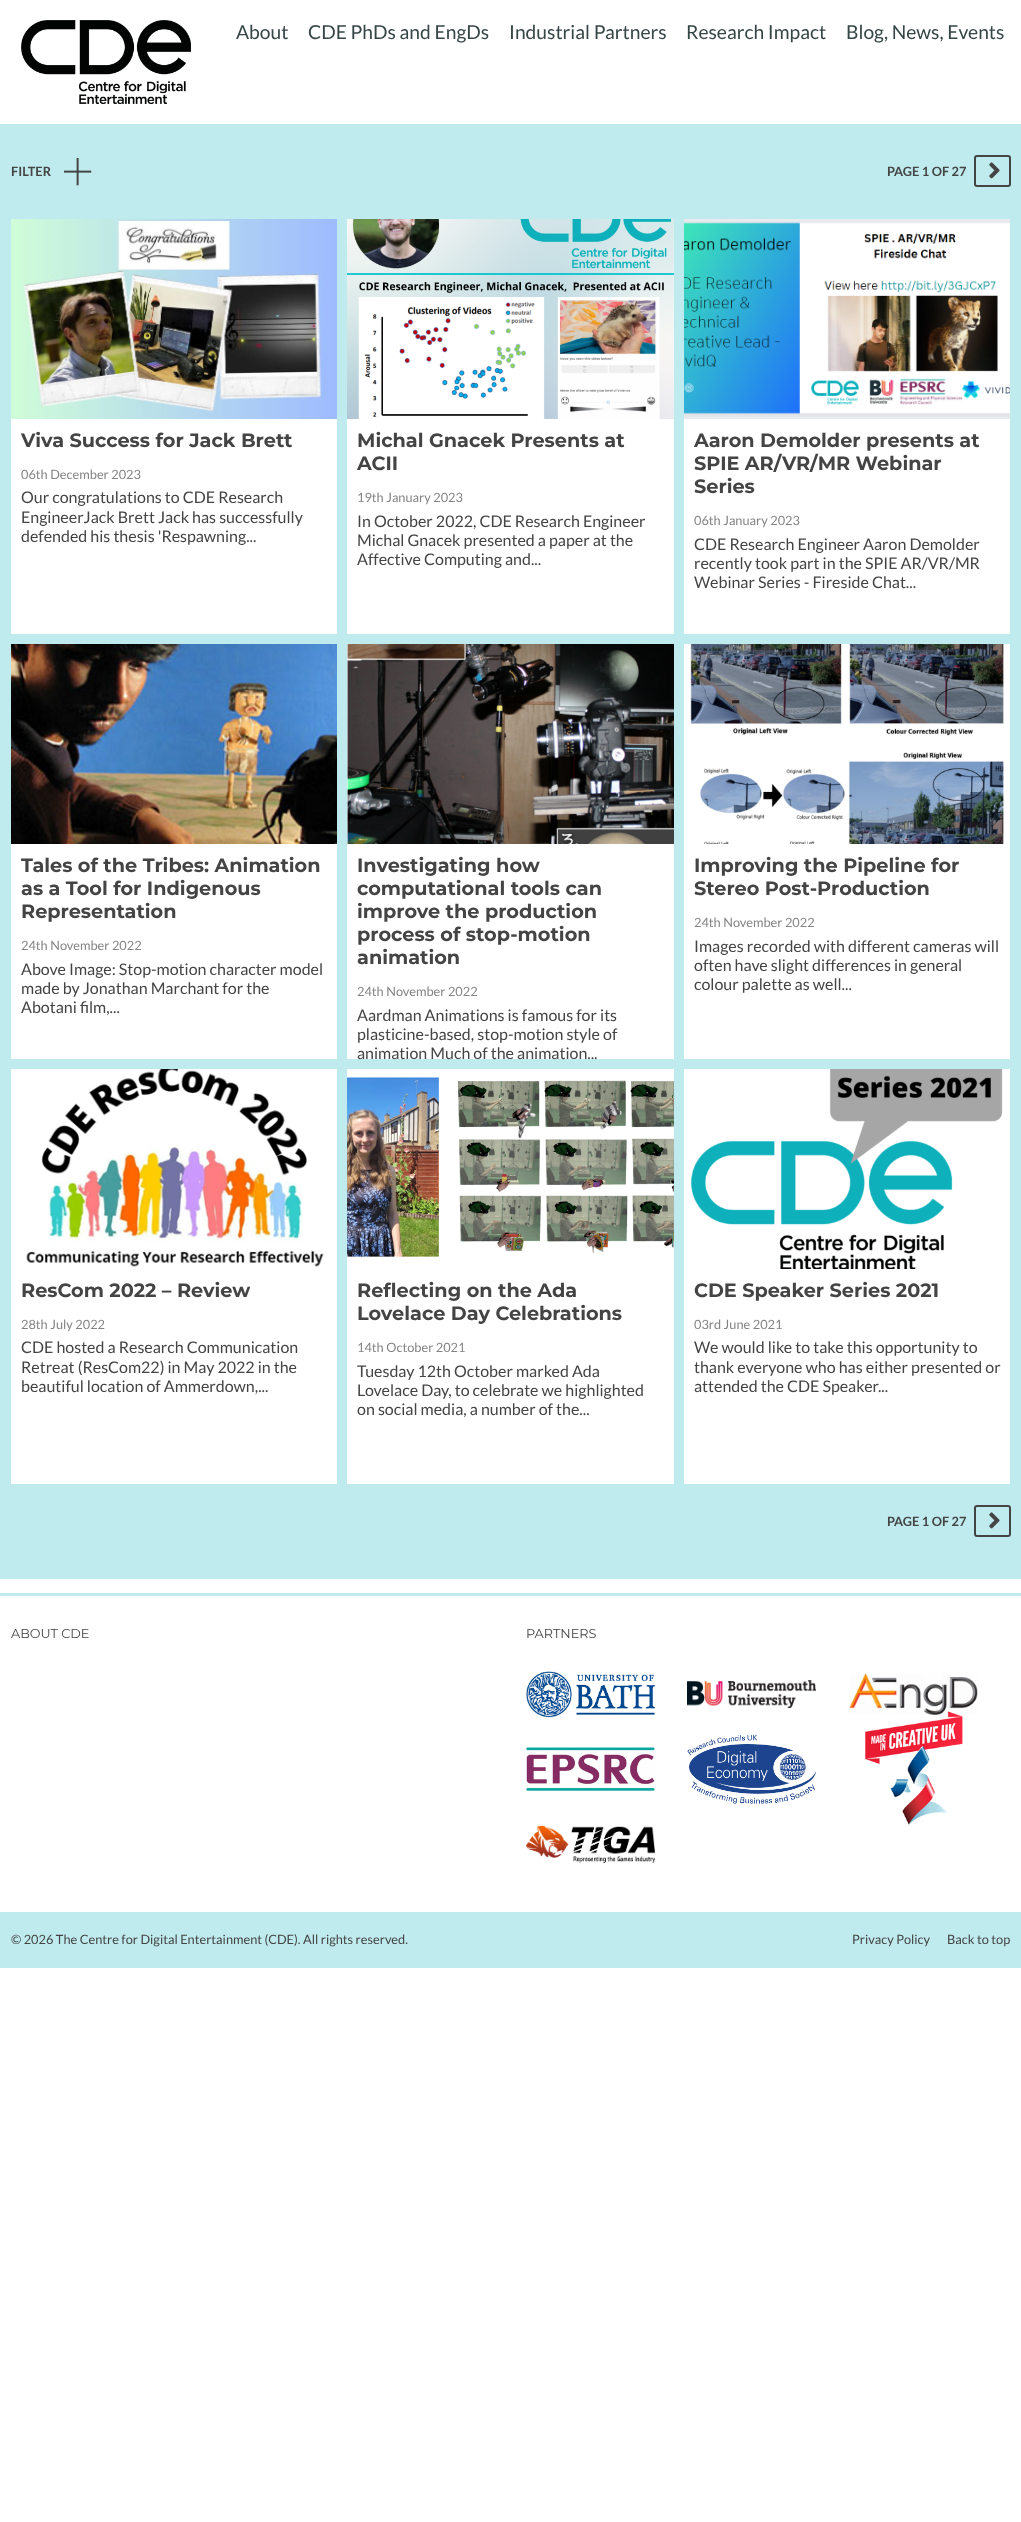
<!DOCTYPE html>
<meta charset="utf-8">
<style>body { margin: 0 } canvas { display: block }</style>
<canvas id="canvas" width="1021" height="2522"></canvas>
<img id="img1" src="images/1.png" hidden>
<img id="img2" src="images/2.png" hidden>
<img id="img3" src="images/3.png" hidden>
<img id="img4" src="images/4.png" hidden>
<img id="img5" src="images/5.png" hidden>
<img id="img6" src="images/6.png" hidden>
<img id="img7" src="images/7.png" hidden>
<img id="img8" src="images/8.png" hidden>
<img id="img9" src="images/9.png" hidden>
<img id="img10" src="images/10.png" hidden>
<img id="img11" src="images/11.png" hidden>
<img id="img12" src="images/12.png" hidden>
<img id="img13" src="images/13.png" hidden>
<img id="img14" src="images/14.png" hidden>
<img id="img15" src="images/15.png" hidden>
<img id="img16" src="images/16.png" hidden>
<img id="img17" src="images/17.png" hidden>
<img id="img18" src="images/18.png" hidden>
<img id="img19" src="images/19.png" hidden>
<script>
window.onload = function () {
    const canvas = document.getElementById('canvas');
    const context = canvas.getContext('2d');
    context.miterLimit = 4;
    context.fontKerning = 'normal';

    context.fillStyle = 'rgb(255, 255, 255)';
    context.fillRect(0, 0, 1021, 2522);
    context.drawImage(document.getElementById('img1'), 21, 20, 170, 84);
    context.fillStyle = 'rgb(191, 235, 238)';
    context.fillRect(0, 124, 1021, 1455);
    context.drawImage(document.getElementById('img2'), 64, 158, 28, 28);
    context.beginPath();
    context.roundRect(975, 156, 35, 30, 2);
    context.strokeStyle = 'rgb(68, 68, 68)';
    context.lineWidth = 2;
    context.stroke();
    context.drawImage(document.getElementById('img3'), 989, 162, 11, 17);
    context.fillStyle = 'rgb(255, 255, 255)';
    context.fillRect(11, 419, 326, 215);
    context.drawImage(document.getElementById('img4'), 11, 219, 326, 200);
    context.fillRect(347, 419, 327, 215);
    context.drawImage(document.getElementById('img5'), 347, 219, 327, 200);
    context.fillRect(684, 419, 326, 215);
    context.drawImage(document.getElementById('img6'), 684, 219, 326, 200);
    context.fillRect(11, 844, 326, 215);
    context.drawImage(document.getElementById('img7'), 11, 644, 326, 200);
    context.fillRect(347, 844, 327, 215);
    context.drawImage(document.getElementById('img8'), 347, 644, 327, 200);
    context.fillRect(684, 644, 326, 415);
    context.drawImage(document.getElementById('img9'), 690, 644, 314, 200);
    context.fillRect(11, 1069, 326, 415);
    context.drawImage(document.getElementById('img10'), 26, 1069, 298, 198);
    context.fillRect(347, 1069, 327, 415);
    context.drawImage(document.getElementById('img11'), 347, 1077, 327, 180);
    context.fillRect(684, 1069, 326, 415);
    context.drawImage(document.getElementById('img12'), 690, 1069, 313, 200);
    context.beginPath();
    context.roundRect(975, 1506, 35, 30, 2);
    context.stroke();
    context.drawImage(document.getElementById('img3'), 989, 1512, 11, 17);
    context.fillStyle = 'rgb(191, 235, 238)';
    context.fillRect(0, 1593, 1021, 3);
    context.drawImage(document.getElementById('img13'), 526, 1671, 129, 47);
    context.drawImage(document.getElementById('img14'), 687, 1680, 129, 29);
    context.drawImage(document.getElementById('img15'), 849, 1673, 129, 42);
    context.drawImage(document.getElementById('img16'), 526, 1747, 129, 44);
    context.drawImage(document.getElementById('img17'), 687, 1734, 129, 70);
    context.drawImage(document.getElementById('img18'), 865, 1711, 98, 114);
    context.drawImage(document.getElementById('img19'), 526, 1825, 129, 38);
    context.fillRect(0, 1912, 1021, 56);
    context.font = '19.25px Lato';
    context.fillStyle = 'rgb(54, 69, 69)';
    context.fillText('About', 236, 39);
    context.fillText('CDE PhDs and EngDs', 308, 39);
    context.fillText('Industrial Partners', 509, 39);
    context.fillText('Research Impact', 686, 39);
    context.fillText('Blog, News, Events', 846, 39);
    context.font = 'bold 12.8px Lato';
    context.fillStyle = 'rgb(68, 68, 68)';
    context.fillText('FILTER', 11, 176);
    context.fillText('PAGE 1 OF 27', 887, 176);
    context.font = 'bold 19.25px Montserrat';
    context.fillText('Viva Success for Jack Brett', 21, 447);
    context.font = '12.8px Lato';
    context.fillStyle = 'rgb(132, 132, 132)';
    context.fillText('06th December 2023', 21, 479);
    context.font = '16px Lato';
    context.fillStyle = 'rgb(68, 68, 68)';
    context.fillText('Our congratulations to CDE Research', 21, 503);
    context.fillText('EngineerJack Brett Jack has successfully', 21, 523);
    context.fillText('defended his thesis \'Respawning...', 21, 542);
    context.font = 'bold 19.25px Montserrat';
    context.fillText('Michal Gnacek Presents at', 357, 447);
    context.fillText('ACII', 357, 470);
    context.font = '12.8px Lato';
    context.fillStyle = 'rgb(132, 132, 132)';
    context.fillText('19th January 2023', 357, 502);
    context.font = '16px Lato';
    context.fillStyle = 'rgb(68, 68, 68)';
    context.fillText('In October 2022, CDE Research Engineer', 357, 527);
    context.fillText('Michal Gnacek presented a paper at the', 357, 546);
    context.fillText('Affective Computing and...', 357, 565);
    context.font = 'bold 19.25px Montserrat';
    context.fillText('Aaron Demolder presents at', 694, 447);
    context.fillText('SPIE AR/VR/MR Webinar', 694, 470);
    context.fillText('Series', 694, 493);
    context.font = '12.8px Lato';
    context.fillStyle = 'rgb(132, 132, 132)';
    context.fillText('06th January 2023', 694, 525);
    context.font = '16px Lato';
    context.fillStyle = 'rgb(68, 68, 68)';
    context.fillText('CDE Research Engineer Aaron Demolder', 694, 550);
    context.fillText('recently took part in the SPIE AR/VR/MR', 694, 569);
    context.fillText('Webinar Series - Fireside Chat...', 694, 588);
    context.font = 'bold 19.25px Montserrat';
    context.fillText('Tales of the Tribes: Animation', 21, 872);
    context.fillText('as a Tool for Indigenous', 21, 895);
    context.fillText('Representation', 21, 918);
    context.font = '12.8px Lato';
    context.fillStyle = 'rgb(132, 132, 132)';
    context.fillText('24th November 2022', 21, 950);
    context.font = '16px Lato';
    context.fillStyle = 'rgb(68, 68, 68)';
    context.fillText('Above Image: Stop-motion character model', 21, 975);
    context.fillText('made by Jonathan Marchant for the', 21, 994);
    context.fillText('Abotani film,...', 21, 1013);
    context.font = 'bold 19.25px Montserrat';
    context.fillText('Investigating how', 357, 872);
    context.fillText('computational tools can', 357, 895);
    context.fillText('improve the production', 357, 918);
    context.fillText('process of stop-motion', 357, 941);
    context.fillText('animation', 357, 964);
    context.font = '12.8px Lato';
    context.fillStyle = 'rgb(132, 132, 132)';
    context.fillText('24th November 2022', 357, 996);
    context.font = '16px Lato';
    context.fillStyle = 'rgb(68, 68, 68)';
    context.fillText('Aardman Animations is famous for its', 357, 1021);
    context.fillText('plasticine-based, stop-motion style of', 357, 1040);
    context.fillText('animation Much of the animation...', 357, 1059);
    context.font = 'bold 19.25px Montserrat';
    context.fillText('Improving the Pipeline for', 694, 872);
    context.fillText('Stereo Post-Production', 694, 895);
    context.font = '12.8px Lato';
    context.fillStyle = 'rgb(132, 132, 132)';
    context.fillText('24th November 2022', 694, 927);
    context.font = '16px Lato';
    context.fillStyle = 'rgb(68, 68, 68)';
    context.fillText('Images recorded with different cameras will', 694, 952);
    context.fillText('often have slight differences in general', 694, 971);
    context.fillText('colour palette as well...', 694, 990);
    context.font = 'bold 19.25px Montserrat';
    context.fillText('ResCom 2022 – Review', 21, 1297);
    context.font = '12.8px Lato';
    context.fillStyle = 'rgb(132, 132, 132)';
    context.fillText('28th July 2022', 21, 1329);
    context.font = '16px Lato';
    context.fillStyle = 'rgb(68, 68, 68)';
    context.fillText('CDE hosted a Research Communication', 21, 1353);
    context.fillText('Retreat (ResCom22) in May 2022 in the', 21, 1373);
    context.fillText('beautiful location of Ammerdown,...', 21, 1392);
    context.font = 'bold 19.25px Montserrat';
    context.fillText('Reflecting on the Ada', 357, 1297);
    context.fillText('Lovelace Day Celebrations', 357, 1320);
    context.font = '12.8px Lato';
    context.fillStyle = 'rgb(132, 132, 132)';
    context.fillText('14th October 2021', 357, 1352);
    context.font = '16px Lato';
    context.fillStyle = 'rgb(68, 68, 68)';
    context.fillText('Tuesday 12th October marked Ada', 357, 1377);
    context.fillText('Lovelace Day, to celebrate we highlighted', 357, 1396);
    context.fillText('on social media, a number of the...', 357, 1415);
    context.font = 'bold 19.25px Montserrat';
    context.fillText('CDE Speaker Series 2021', 694, 1297);
    context.font = '12.8px Lato';
    context.fillStyle = 'rgb(132, 132, 132)';
    context.fillText('03rd June 2021', 694, 1329);
    context.font = '16px Lato';
    context.fillStyle = 'rgb(68, 68, 68)';
    context.fillText('We would like to take this opportunity to', 694, 1353);
    context.fillText('thank everyone who has either presented or', 694, 1373);
    context.fillText('attended the CDE Speaker...', 694, 1392);
    context.font = 'bold 12.8px Lato';
    context.fillText('PAGE 1 OF 27', 887, 1526);
    context.font = '12.8px Montserrat';
    context.fillText('ABOUT CDE', 11, 1638);
    context.fillText('PARTNERS', 526, 1638);
    context.font = '12.8px Lato';
    context.fillText('© 2026 The Centre for Digital Entertainment (CDE). All rights reserved.', 11, 1944);
    context.fillText('Privacy Policy', 852, 1944);
    context.fillText('Back to top', 947, 1944);
};
</script>
